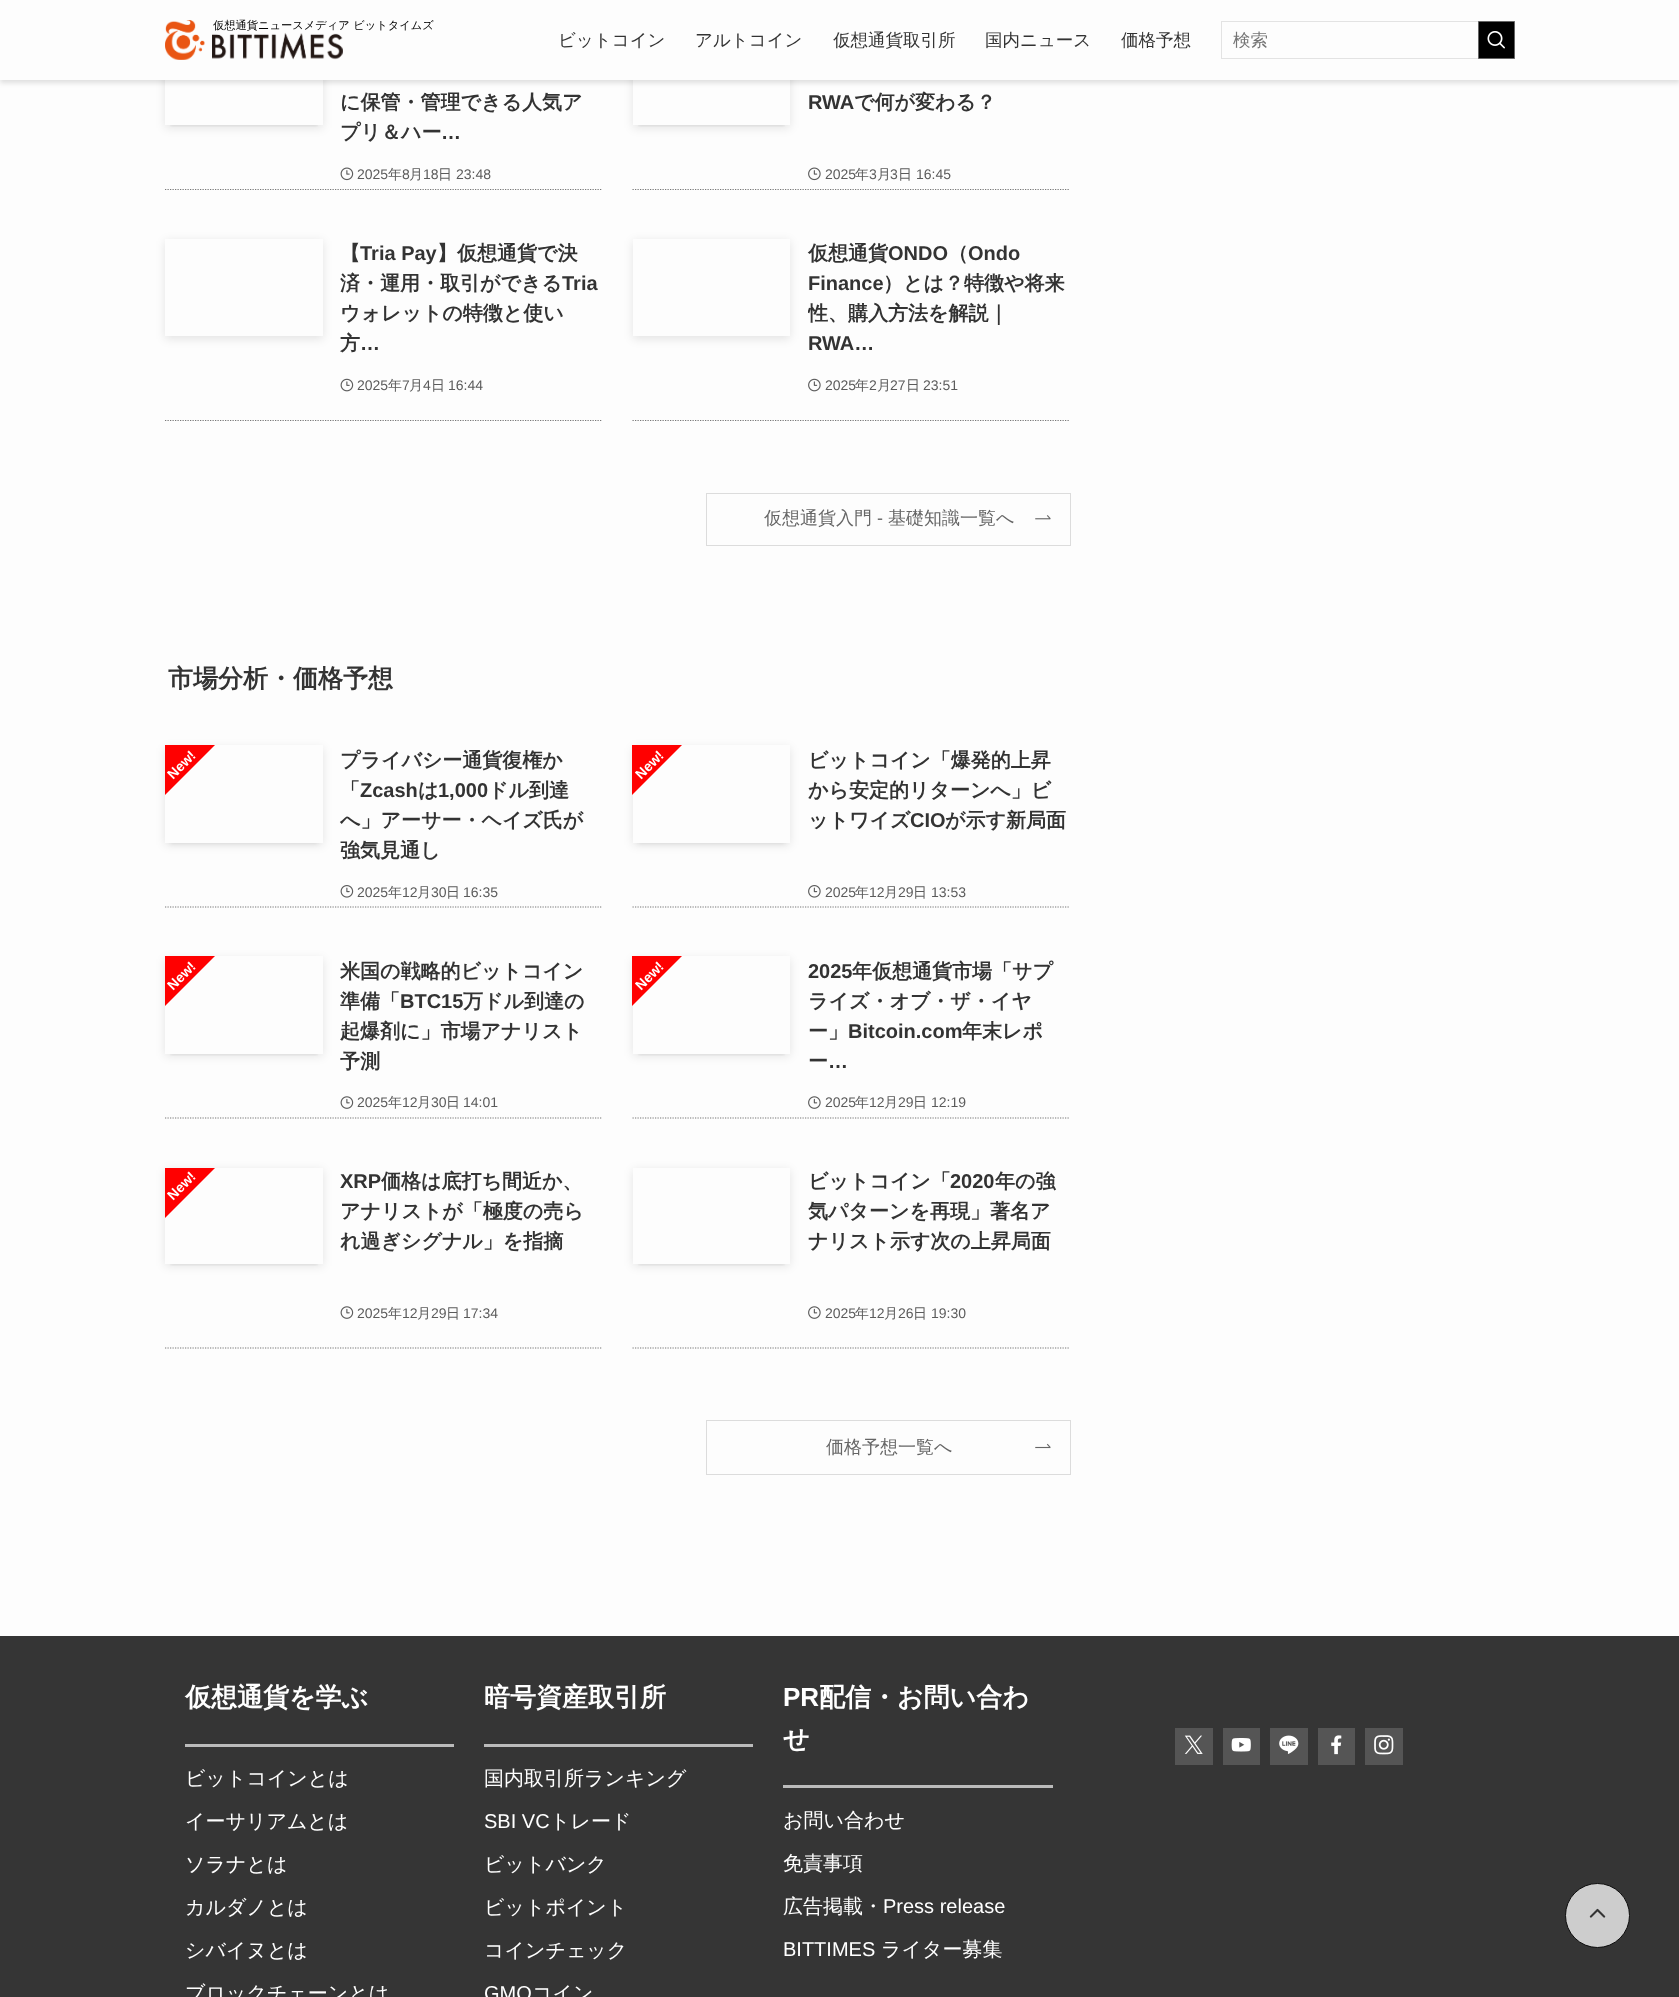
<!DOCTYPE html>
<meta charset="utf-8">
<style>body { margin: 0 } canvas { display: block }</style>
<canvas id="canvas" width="1679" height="1997"></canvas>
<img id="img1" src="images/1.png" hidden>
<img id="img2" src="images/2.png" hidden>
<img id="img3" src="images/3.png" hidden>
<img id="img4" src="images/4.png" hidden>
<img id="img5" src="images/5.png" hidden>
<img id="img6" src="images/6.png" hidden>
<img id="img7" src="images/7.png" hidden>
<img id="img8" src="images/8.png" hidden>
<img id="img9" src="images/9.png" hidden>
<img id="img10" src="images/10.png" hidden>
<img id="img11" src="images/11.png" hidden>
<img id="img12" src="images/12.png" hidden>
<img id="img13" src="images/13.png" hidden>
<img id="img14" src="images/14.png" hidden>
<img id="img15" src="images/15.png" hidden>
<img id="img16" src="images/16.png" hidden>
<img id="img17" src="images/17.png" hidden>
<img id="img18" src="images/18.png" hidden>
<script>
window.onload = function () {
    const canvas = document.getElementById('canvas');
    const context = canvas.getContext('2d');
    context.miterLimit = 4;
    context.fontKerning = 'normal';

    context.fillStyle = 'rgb(253, 253, 253)';
    context.fillRect(0, 0, 1679, 1997);
    context.fillStyle = 'rgba(0, 0, 0, 0.12)';
    context.filter = 'blur(2.5px)';
    context.beginPath();
    context.rect(0, 3, 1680, 80);
    context.fill();
    context.filter = 'none';
    context.save();
    context.beginPath();
    context.rect(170, 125, 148, 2);
    context.clip();
    context.fillStyle = 'rgba(0, 0, 0, 0.1)';
    context.filter = 'blur(2.5px)';
    context.beginPath();
    context.rect(170, 38, 148, 87);
    context.fill();
    context.filter = 'none';
    context.restore();
    context.save();
    context.beginPath();
    context.moveTo(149, 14);
    context.lineTo(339, 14);
    context.lineTo(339, 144);
    context.lineTo(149, 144);
    context.closePath();
    context.moveTo(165, 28);
    context.lineTo(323, 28);
    context.lineTo(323, 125);
    context.lineTo(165, 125);
    context.closePath();
    context.clip('evenodd');
    context.fillStyle = 'rgba(0, 0, 0, 0.1)';
    context.filter = 'blur(5px)';
    context.beginPath();
    context.rect(165, 30, 158, 98);
    context.fill();
    context.filter = 'none';
    context.restore();
    context.save();
    context.beginPath();
    context.rect(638, 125, 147, 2);
    context.clip();
    context.fillStyle = 'rgba(0, 0, 0, 0.1)';
    context.filter = 'blur(2.5px)';
    context.beginPath();
    context.rect(638, 38, 147, 87);
    context.fill();
    context.filter = 'none';
    context.restore();
    context.save();
    context.beginPath();
    context.moveTo(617, 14);
    context.lineTo(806, 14);
    context.lineTo(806, 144);
    context.lineTo(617, 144);
    context.closePath();
    context.moveTo(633, 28);
    context.lineTo(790, 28);
    context.lineTo(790, 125);
    context.lineTo(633, 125);
    context.closePath();
    context.clip('evenodd');
    context.fillStyle = 'rgba(0, 0, 0, 0.1)';
    context.filter = 'blur(5px)';
    context.beginPath();
    context.rect(633, 30, 157, 98);
    context.fill();
    context.filter = 'none';
    context.restore();
    context.fillStyle = 'rgb(253, 253, 253)';
    context.fillRect(0, 0, 1679, 80);
    context.drawImage(document.getElementById('img1'), 165, 20, 178, 40);
    context.strokeStyle = 'rgb(227, 227, 227)';
    context.strokeRect(1221.5, 21.5, 293, 37);
    context.fillStyle = 'rgb(0, 0, 0)';
    context.beginPath();
    context.rect(1478.5, 21.5, 36, 37);
    context.fill();
    context.strokeStyle = 'rgb(100, 100, 100)';
    context.stroke();
    context.drawImage(document.getElementById('img2'), 1487, 31, 18, 18);
    context.beginPath();
    context.moveTo(165, 189.5);
    context.lineTo(602.5, 189.5);
    context.strokeStyle = 'rgb(119, 119, 119)';
    context.lineWidth = 1.2;
    context.setLineDash([1.25, 1.25]);
    context.stroke();
    context.drawImage(document.getElementById('img3'), 340, 167, 14, 14);
    context.beginPath();
    context.moveTo(165, 420.5);
    context.lineTo(602.5, 420.5);
    context.stroke();
    context.save();
    context.beginPath();
    context.moveTo(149, 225);
    context.lineTo(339, 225);
    context.lineTo(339, 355);
    context.lineTo(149, 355);
    context.closePath();
    context.moveTo(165, 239);
    context.lineTo(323, 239);
    context.lineTo(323, 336);
    context.lineTo(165, 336);
    context.closePath();
    context.clip('evenodd');
    context.fillStyle = 'rgba(0, 0, 0, 0.1)';
    context.filter = 'blur(5px)';
    context.beginPath();
    context.rect(165, 241, 158, 98);
    context.fill();
    context.filter = 'none';
    context.restore();
    context.drawImage(document.getElementById('img4'), 340, 378, 14, 14);
    context.beginPath();
    context.moveTo(632.5, 189.5);
    context.lineTo(1070, 189.5);
    context.stroke();
    context.drawImage(document.getElementById('img5'), 808, 167, 13, 14);
    context.beginPath();
    context.moveTo(632.5, 420.5);
    context.lineTo(1070, 420.5);
    context.stroke();
    context.save();
    context.beginPath();
    context.moveTo(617, 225);
    context.lineTo(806, 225);
    context.lineTo(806, 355);
    context.lineTo(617, 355);
    context.closePath();
    context.moveTo(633, 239);
    context.lineTo(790, 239);
    context.lineTo(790, 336);
    context.lineTo(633, 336);
    context.closePath();
    context.clip('evenodd');
    context.fillStyle = 'rgba(0, 0, 0, 0.1)';
    context.filter = 'blur(5px)';
    context.beginPath();
    context.rect(633, 241, 157, 98);
    context.fill();
    context.filter = 'none';
    context.restore();
    context.drawImage(document.getElementById('img6'), 808, 378, 13, 14);
    context.strokeStyle = 'rgb(220, 220, 220)';
    context.lineWidth = 1;
    context.setLineDash([]);
    context.strokeRect(706.5, 493.5, 364, 52);
    context.drawImage(document.getElementById('img7'), 1035, 515, 16, 5);
    context.beginPath();
    context.moveTo(165, 907);
    context.lineTo(602.5, 907);
    context.strokeStyle = 'rgb(119, 119, 119)';
    context.lineWidth = 1.2;
    context.setLineDash([1.25, 1.25]);
    context.stroke();
    context.save();
    context.beginPath();
    context.moveTo(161, 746);
    context.lineTo(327, 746);
    context.lineTo(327, 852);
    context.lineTo(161, 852);
    context.closePath();
    context.moveTo(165, 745);
    context.lineTo(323, 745);
    context.lineTo(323, 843);
    context.lineTo(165, 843);
    context.closePath();
    context.clip('evenodd');
    context.fillStyle = 'rgba(0, 0, 0, 0.1)';
    context.filter = 'blur(2.5px)';
    context.beginPath();
    context.rect(170, 755, 148, 88);
    context.fill();
    context.filter = 'none';
    context.restore();
    context.save();
    context.beginPath();
    context.moveTo(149, 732);
    context.lineTo(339, 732);
    context.lineTo(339, 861);
    context.lineTo(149, 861);
    context.closePath();
    context.moveTo(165, 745);
    context.lineTo(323, 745);
    context.lineTo(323, 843);
    context.lineTo(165, 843);
    context.closePath();
    context.clip('evenodd');
    context.fillStyle = 'rgba(0, 0, 0, 0.1)';
    context.filter = 'blur(5px)';
    context.beginPath();
    context.rect(165, 748, 158, 97);
    context.fill();
    context.filter = 'none';
    context.restore();
    context.fillStyle = 'rgb(255, 0, 0)';
    context.beginPath();
    context.moveTo(165, 795);
    context.lineTo(165, 745);
    context.lineTo(215, 745);
    context.closePath();
    context.fill();
    context.drawImage(document.getElementById('img8'), 340, 885, 14, 13);
    context.beginPath();
    context.moveTo(165, 1118);
    context.lineTo(602.5, 1118);
    context.stroke();
    context.save();
    context.beginPath();
    context.rect(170, 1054, 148, 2);
    context.clip();
    context.fillStyle = 'rgba(0, 0, 0, 0.1)';
    context.filter = 'blur(2.5px)';
    context.beginPath();
    context.rect(170, 966, 148, 88);
    context.fill();
    context.filter = 'none';
    context.restore();
    context.save();
    context.beginPath();
    context.moveTo(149, 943);
    context.lineTo(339, 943);
    context.lineTo(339, 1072);
    context.lineTo(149, 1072);
    context.closePath();
    context.moveTo(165, 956);
    context.lineTo(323, 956);
    context.lineTo(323, 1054);
    context.lineTo(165, 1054);
    context.closePath();
    context.clip('evenodd');
    context.fillStyle = 'rgba(0, 0, 0, 0.1)';
    context.filter = 'blur(5px)';
    context.beginPath();
    context.rect(165, 959, 158, 97);
    context.fill();
    context.filter = 'none';
    context.restore();
    context.beginPath();
    context.moveTo(165, 1006);
    context.lineTo(165, 956);
    context.lineTo(215, 956);
    context.closePath();
    context.fill();
    context.drawImage(document.getElementById('img9'), 340, 1096, 14, 13);
    context.beginPath();
    context.moveTo(165, 1348);
    context.lineTo(602.5, 1348);
    context.stroke();
    context.save();
    context.beginPath();
    context.rect(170, 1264, 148, 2);
    context.clip();
    context.fillStyle = 'rgba(0, 0, 0, 0.1)';
    context.filter = 'blur(2.5px)';
    context.beginPath();
    context.rect(170, 1178, 148, 86);
    context.fill();
    context.filter = 'none';
    context.restore();
    context.save();
    context.beginPath();
    context.moveTo(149, 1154);
    context.lineTo(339, 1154);
    context.lineTo(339, 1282);
    context.lineTo(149, 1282);
    context.closePath();
    context.moveTo(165, 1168);
    context.lineTo(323, 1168);
    context.lineTo(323, 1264);
    context.lineTo(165, 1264);
    context.closePath();
    context.clip('evenodd');
    context.fillStyle = 'rgba(0, 0, 0, 0.1)';
    context.filter = 'blur(5px)';
    context.beginPath();
    context.rect(165, 1170, 158, 96);
    context.fill();
    context.filter = 'none';
    context.restore();
    context.beginPath();
    context.moveTo(165, 1218);
    context.lineTo(165, 1168);
    context.lineTo(215, 1168);
    context.closePath();
    context.fill();
    context.drawImage(document.getElementById('img9'), 340, 1306, 14, 13);
    context.beginPath();
    context.moveTo(632.5, 907);
    context.lineTo(1070, 907);
    context.stroke();
    context.save();
    context.beginPath();
    context.moveTo(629, 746);
    context.lineTo(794, 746);
    context.lineTo(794, 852);
    context.lineTo(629, 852);
    context.closePath();
    context.moveTo(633, 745);
    context.lineTo(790, 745);
    context.lineTo(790, 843);
    context.lineTo(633, 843);
    context.closePath();
    context.clip('evenodd');
    context.fillStyle = 'rgba(0, 0, 0, 0.1)';
    context.filter = 'blur(2.5px)';
    context.beginPath();
    context.rect(638, 755, 147, 88);
    context.fill();
    context.filter = 'none';
    context.restore();
    context.save();
    context.beginPath();
    context.moveTo(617, 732);
    context.lineTo(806, 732);
    context.lineTo(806, 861);
    context.lineTo(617, 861);
    context.closePath();
    context.moveTo(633, 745);
    context.lineTo(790, 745);
    context.lineTo(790, 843);
    context.lineTo(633, 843);
    context.closePath();
    context.clip('evenodd');
    context.fillStyle = 'rgba(0, 0, 0, 0.1)';
    context.filter = 'blur(5px)';
    context.beginPath();
    context.rect(633, 748, 157, 97);
    context.fill();
    context.filter = 'none';
    context.restore();
    context.beginPath();
    context.moveTo(632, 795);
    context.lineTo(632, 745);
    context.lineTo(682, 745);
    context.closePath();
    context.fill();
    context.drawImage(document.getElementById('img10'), 808, 885, 13, 13);
    context.beginPath();
    context.moveTo(632.5, 1118);
    context.lineTo(1070, 1118);
    context.stroke();
    context.save();
    context.beginPath();
    context.rect(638, 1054, 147, 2);
    context.clip();
    context.fillStyle = 'rgba(0, 0, 0, 0.1)';
    context.filter = 'blur(2.5px)';
    context.beginPath();
    context.rect(638, 966, 147, 88);
    context.fill();
    context.filter = 'none';
    context.restore();
    context.save();
    context.beginPath();
    context.moveTo(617, 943);
    context.lineTo(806, 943);
    context.lineTo(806, 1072);
    context.lineTo(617, 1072);
    context.closePath();
    context.moveTo(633, 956);
    context.lineTo(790, 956);
    context.lineTo(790, 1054);
    context.lineTo(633, 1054);
    context.closePath();
    context.clip('evenodd');
    context.fillStyle = 'rgba(0, 0, 0, 0.1)';
    context.filter = 'blur(5px)';
    context.beginPath();
    context.rect(633, 959, 157, 97);
    context.fill();
    context.filter = 'none';
    context.restore();
    context.beginPath();
    context.moveTo(632, 1006);
    context.lineTo(632, 956);
    context.lineTo(682, 956);
    context.closePath();
    context.fill();
    context.drawImage(document.getElementById('img11'), 808, 1096, 13, 13);
    context.beginPath();
    context.moveTo(632.5, 1348);
    context.lineTo(1070, 1348);
    context.stroke();
    context.save();
    context.beginPath();
    context.rect(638, 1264, 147, 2);
    context.clip();
    context.fillStyle = 'rgba(0, 0, 0, 0.1)';
    context.filter = 'blur(2.5px)';
    context.beginPath();
    context.rect(638, 1178, 147, 86);
    context.fill();
    context.filter = 'none';
    context.restore();
    context.save();
    context.beginPath();
    context.moveTo(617, 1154);
    context.lineTo(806, 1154);
    context.lineTo(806, 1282);
    context.lineTo(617, 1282);
    context.closePath();
    context.moveTo(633, 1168);
    context.lineTo(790, 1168);
    context.lineTo(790, 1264);
    context.lineTo(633, 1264);
    context.closePath();
    context.clip('evenodd');
    context.fillStyle = 'rgba(0, 0, 0, 0.1)';
    context.filter = 'blur(5px)';
    context.beginPath();
    context.rect(633, 1170, 157, 96);
    context.fill();
    context.filter = 'none';
    context.restore();
    context.drawImage(document.getElementById('img11'), 808, 1306, 13, 13);
    context.strokeStyle = 'rgb(220, 220, 220)';
    context.lineWidth = 1;
    context.setLineDash([]);
    context.strokeRect(706.5, 1420.5, 364, 54);
    context.drawImage(document.getElementById('img12'), 1035, 1443, 16, 6);
    context.fillStyle = 'rgb(53, 53, 53)';
    context.fillRect(0, 1636, 1679, 361);
    context.fillStyle = 'rgb(187, 187, 187)';
    context.fillRect(185, 1744, 269, 3);
    context.fillRect(484, 1744, 269, 3);
    context.fillRect(783, 1785, 270, 3);
    context.fillStyle = 'rgb(85, 85, 85)';
    context.fillRect(1175, 1728, 38, 37);
    context.drawImage(document.getElementById('img13'), 1184, 1735, 19, 19);
    context.fillRect(1223, 1728, 37, 37);
    context.drawImage(document.getElementById('img14'), 1231, 1738, 20, 14);
    context.fillRect(1270, 1728, 38, 37);
    context.drawImage(document.getElementById('img15'), 1279, 1735, 20, 19);
    context.fillRect(1318, 1728, 37, 37);
    context.drawImage(document.getElementById('img16'), 1331, 1735, 11, 20);
    context.fillRect(1365, 1728, 38, 37);
    context.drawImage(document.getElementById('img17'), 1374, 1735, 20, 20);
    context.fillStyle = 'rgb(205, 205, 205)';
    context.beginPath();
    context.arc(1597.5, 1915.5, 32, 0, 2 * Math.PI);
    context.fill();
    context.strokeStyle = 'rgb(13, 13, 13)';
    context.stroke();
    context.drawImage(document.getElementById('img18'), 1589, 1908, 17, 10);
    context.font = '500 11.25px WenQuanYi Zen Hei';
    context.fillStyle = 'rgb(0, 0, 0)';
    context.fillText('仮想通貨ニュースメディア ビットタイムズ', 213, 29);
    context.font = '500 17.5px WenQuanYi Zen Hei';
    context.fillStyle = 'rgb(51, 51, 51)';
    context.fillText('ビットコイン', 558, 46);
    context.fillText('アルトコイン', 695, 46);
    context.fillText('仮想通貨取引所', 833, 46);
    context.fillText('国内ニュース', 985, 46);
    context.fillText('価格予想', 1121, 46);
    context.fillStyle = 'rgb(117, 117, 117)';
    context.fillText('検索', 1233, 46);
    context.font = 'bold 20px WenQuanYi Zen Hei';
    context.fillStyle = 'rgb(51, 51, 51)';
    context.fillText('に保管・管理できる人気ア', 340, 109);
    context.fillText('プリ＆ハー', 340, 139);
    context.font = 'bold 20px Liberation Sans';
    context.fillText('…', 441, 139);
    context.font = '14px Liberation Sans';
    context.fillStyle = 'rgb(91, 91, 91)';
    context.fillText('2025', 357, 179);
    context.font = '500 14px WenQuanYi Zen Hei';
    context.fillText('年', 388, 179);
    context.font = '14px Liberation Sans';
    context.fillText('8', 402, 179);
    context.font = '500 14px WenQuanYi Zen Hei';
    context.fillText('月', 409, 179);
    context.font = '14px Liberation Sans';
    context.fillText('18', 423, 179);
    context.font = '500 14px WenQuanYi Zen Hei';
    context.fillText('日', 438, 179);
    context.font = '14px Liberation Sans';
    context.fillText('23:48', 456, 179);
    context.font = 'bold 20px WenQuanYi Zen Hei';
    context.fillStyle = 'rgb(51, 51, 51)';
    context.fillText('【', 340, 260);
    context.font = 'bold 20px Liberation Sans';
    context.fillText('Tria Pay', 360, 260);
    context.font = 'bold 20px WenQuanYi Zen Hei';
    context.fillText('】仮想通貨で決', 437, 260);
    context.fillText('済・運用・取引ができる', 340, 290);
    context.font = 'bold 20px Liberation Sans';
    context.fillText('Tria', 562, 290);
    context.font = 'bold 20px WenQuanYi Zen Hei';
    context.fillText('ウォレットの特徴と使い', 340, 320);
    context.fillText('方', 340, 350);
    context.font = 'bold 20px Liberation Sans';
    context.fillText('…', 360, 350);
    context.font = '14px Liberation Sans';
    context.fillStyle = 'rgb(91, 91, 91)';
    context.fillText('2025', 357, 390);
    context.font = '500 14px WenQuanYi Zen Hei';
    context.fillText('年', 388, 390);
    context.font = '14px Liberation Sans';
    context.fillText('7', 402, 390);
    context.font = '500 14px WenQuanYi Zen Hei';
    context.fillText('月', 409, 390);
    context.font = '14px Liberation Sans';
    context.fillText('4', 423, 390);
    context.font = '500 14px WenQuanYi Zen Hei';
    context.fillText('日', 431, 390);
    context.font = '14px Liberation Sans';
    context.fillText('16:44', 448, 390);
    context.font = 'bold 20px Liberation Sans';
    context.fillStyle = 'rgb(51, 51, 51)';
    context.fillText('RWA', 808, 109);
    context.font = 'bold 20px WenQuanYi Zen Hei';
    context.fillText('で何が変わる？', 854, 109);
    context.font = '14px Liberation Sans';
    context.fillStyle = 'rgb(91, 91, 91)';
    context.fillText('2025', 825, 179);
    context.font = '500 14px WenQuanYi Zen Hei';
    context.fillText('年', 855, 179);
    context.font = '14px Liberation Sans';
    context.fillText('3', 869, 179);
    context.font = '500 14px WenQuanYi Zen Hei';
    context.fillText('月', 877, 179);
    context.font = '14px Liberation Sans';
    context.fillText('3', 890, 179);
    context.font = '500 14px WenQuanYi Zen Hei';
    context.fillText('日', 898, 179);
    context.font = '14px Liberation Sans';
    context.fillText('16:45', 916, 179);
    context.font = 'bold 20px WenQuanYi Zen Hei';
    context.fillStyle = 'rgb(51, 51, 51)';
    context.fillText('仮想通貨', 808, 260);
    context.font = 'bold 20px Liberation Sans';
    context.fillText('ONDO', 888, 260);
    context.font = 'bold 20px WenQuanYi Zen Hei';
    context.fillText('（', 948, 260);
    context.font = 'bold 20px Liberation Sans';
    context.fillText('Ondo', 968, 260);
    context.fillText('Finance', 808, 290);
    context.font = 'bold 20px WenQuanYi Zen Hei';
    context.fillText('）とは？特徴や将来', 883, 290);
    context.save();
    context.beginPath();
    context.rect(808, 239, 262, 115);
    context.clip();
    context.fillText('性、購入方法を解説｜', 808, 320);
    context.restore();
    context.font = 'bold 20px Liberation Sans';
    context.fillText('RWA…', 808, 350);
    context.font = '14px Liberation Sans';
    context.fillStyle = 'rgb(91, 91, 91)';
    context.fillText('2025', 825, 390);
    context.font = '500 14px WenQuanYi Zen Hei';
    context.fillText('年', 855, 390);
    context.font = '14px Liberation Sans';
    context.fillText('2', 869, 390);
    context.font = '500 14px WenQuanYi Zen Hei';
    context.fillText('月', 877, 390);
    context.font = '14px Liberation Sans';
    context.fillText('27', 890, 390);
    context.font = '500 14px WenQuanYi Zen Hei';
    context.fillText('日', 906, 390);
    context.font = '14px Liberation Sans';
    context.fillText('23:51', 923, 390);
    context.font = '500 18px WenQuanYi Zen Hei';
    context.fillStyle = 'rgb(102, 102, 102)';
    context.fillText('仮想通貨入門', 764, 524);
    context.font = '18px Liberation Sans';
    context.fillText('-', 877, 524);
    context.font = '500 18px WenQuanYi Zen Hei';
    context.fillText('基礎知識一覧へ', 888, 524);
    context.font = 'bold 25px WenQuanYi Zen Hei';
    context.fillStyle = 'rgb(51, 51, 51)';
    context.fillText('市場分析・価格予想', 168, 687);
    context.font = 'bold 14px Liberation Sans';
    context.fillStyle = 'rgb(255, 255, 255)';
    context.save();
    context.translate(173, 780);
    context.rotate(-45 * Math.PI / 180);
    context.fillText('New!', 0, 0);
    context.restore();
    context.font = 'bold 20px WenQuanYi Zen Hei';
    context.fillStyle = 'rgb(51, 51, 51)';
    context.fillText('プライバシー通貨復権か', 340, 767);
    context.fillText('「', 340, 797);
    context.font = 'bold 20px Liberation Sans';
    context.fillText('Zcash', 360, 797);
    context.font = 'bold 20px WenQuanYi Zen Hei';
    context.fillText('は', 418, 797);
    context.font = 'bold 20px Liberation Sans';
    context.fillText('1,000', 438, 797);
    context.font = 'bold 20px WenQuanYi Zen Hei';
    context.fillText('ドル到達', 488, 797);
    context.fillText('へ」アーサー・ヘイズ氏が', 340, 827);
    context.fillText('強気見通し', 340, 857);
    context.font = '14px Liberation Sans';
    context.fillStyle = 'rgb(91, 91, 91)';
    context.fillText('2025', 357, 897);
    context.font = '500 14px WenQuanYi Zen Hei';
    context.fillText('年', 388, 897);
    context.font = '14px Liberation Sans';
    context.fillText('12', 402, 897);
    context.font = '500 14px WenQuanYi Zen Hei';
    context.fillText('月', 417, 897);
    context.font = '14px Liberation Sans';
    context.fillText('30', 431, 897);
    context.font = '500 14px WenQuanYi Zen Hei';
    context.fillText('日', 446, 897);
    context.font = '14px Liberation Sans';
    context.fillText('16:35', 463, 897);
    context.font = 'bold 14px Liberation Sans';
    context.fillStyle = 'rgb(255, 255, 255)';
    context.save();
    context.translate(173, 991);
    context.rotate(-45 * Math.PI / 180);
    context.fillText('New!', 0, 0);
    context.restore();
    context.font = 'bold 20px WenQuanYi Zen Hei';
    context.fillStyle = 'rgb(51, 51, 51)';
    context.fillText('米国の戦略的ビットコイン', 340, 978);
    context.fillText('準備「', 340, 1008);
    context.font = 'bold 20px Liberation Sans';
    context.fillText('BTC15', 400, 1008);
    context.font = 'bold 20px WenQuanYi Zen Hei';
    context.fillText('万ドル到達の', 463, 1008);
    context.fillText('起爆剤に」市場アナリスト', 340, 1038);
    context.fillText('予測', 340, 1068);
    context.font = '14px Liberation Sans';
    context.fillStyle = 'rgb(91, 91, 91)';
    context.fillText('2025', 357, 1107);
    context.font = '500 14px WenQuanYi Zen Hei';
    context.fillText('年', 388, 1107);
    context.font = '14px Liberation Sans';
    context.fillText('12', 402, 1107);
    context.font = '500 14px WenQuanYi Zen Hei';
    context.fillText('月', 417, 1107);
    context.font = '14px Liberation Sans';
    context.fillText('30', 431, 1107);
    context.font = '500 14px WenQuanYi Zen Hei';
    context.fillText('日', 446, 1107);
    context.font = '14px Liberation Sans';
    context.fillText('14:01', 463, 1107);
    context.font = 'bold 14px Liberation Sans';
    context.fillStyle = 'rgb(255, 255, 255)';
    context.save();
    context.translate(173, 1201);
    context.rotate(-45 * Math.PI / 180);
    context.fillText('New!', 0, 0);
    context.restore();
    context.font = 'bold 20px Liberation Sans';
    context.fillStyle = 'rgb(51, 51, 51)';
    context.fillText('XRP', 340, 1188);
    context.font = 'bold 20px WenQuanYi Zen Hei';
    context.fillText('価格は底打ち間近か、', 381, 1188);
    context.fillText('アナリストが「極度の売ら', 340, 1218);
    context.fillText('れ過ぎシグナル」を指摘', 340, 1248);
    context.font = '14px Liberation Sans';
    context.fillStyle = 'rgb(91, 91, 91)';
    context.fillText('2025', 357, 1318);
    context.font = '500 14px WenQuanYi Zen Hei';
    context.fillText('年', 388, 1318);
    context.font = '14px Liberation Sans';
    context.fillText('12', 402, 1318);
    context.font = '500 14px WenQuanYi Zen Hei';
    context.fillText('月', 417, 1318);
    context.font = '14px Liberation Sans';
    context.fillText('29', 431, 1318);
    context.font = '500 14px WenQuanYi Zen Hei';
    context.fillText('日', 446, 1318);
    context.font = '14px Liberation Sans';
    context.fillText('17:34', 463, 1318);
    context.font = 'bold 14px Liberation Sans';
    context.fillStyle = 'rgb(255, 255, 255)';
    context.save();
    context.translate(641, 780);
    context.rotate(-45 * Math.PI / 180);
    context.fillText('New!', 0, 0);
    context.restore();
    context.font = 'bold 20px WenQuanYi Zen Hei';
    context.fillStyle = 'rgb(51, 51, 51)';
    context.fillText('ビットコイン「爆発的上昇', 808, 767);
    context.fillText('から安定的リターンへ」ビ', 808, 797);
    context.fillText('ットワイズ', 808, 827);
    context.font = 'bold 20px Liberation Sans';
    context.fillText('CIO', 910, 827);
    context.font = 'bold 20px WenQuanYi Zen Hei';
    context.fillText('が示す新局面', 945, 827);
    context.font = '14px Liberation Sans';
    context.fillStyle = 'rgb(91, 91, 91)';
    context.fillText('2025', 825, 897);
    context.font = '500 14px WenQuanYi Zen Hei';
    context.fillText('年', 855, 897);
    context.font = '14px Liberation Sans';
    context.fillText('12', 869, 897);
    context.font = '500 14px WenQuanYi Zen Hei';
    context.fillText('月', 884, 897);
    context.font = '14px Liberation Sans';
    context.fillText('29', 898, 897);
    context.font = '500 14px WenQuanYi Zen Hei';
    context.fillText('日', 913, 897);
    context.font = '14px Liberation Sans';
    context.fillText('13:53', 931, 897);
    context.font = 'bold 14px Liberation Sans';
    context.fillStyle = 'rgb(255, 255, 255)';
    context.save();
    context.translate(641, 991);
    context.rotate(-45 * Math.PI / 180);
    context.fillText('New!', 0, 0);
    context.restore();
    context.font = 'bold 20px Liberation Sans';
    context.fillStyle = 'rgb(51, 51, 51)';
    context.fillText('2025', 808, 978);
    context.font = 'bold 20px WenQuanYi Zen Hei';
    context.fillText('年仮想通貨市場「サプ', 852, 978);
    context.fillText('ライズ・オブ・ザ・イヤ', 808, 1008);
    context.fillText('ー」', 808, 1038);
    context.font = 'bold 20px Liberation Sans';
    context.fillText('Bitcoin.com', 848, 1038);
    context.font = 'bold 20px WenQuanYi Zen Hei';
    context.fillText('年末レポ', 962, 1038);
    context.fillText('ー', 808, 1068);
    context.font = 'bold 20px Liberation Sans';
    context.fillText('…', 828, 1068);
    context.font = '14px Liberation Sans';
    context.fillStyle = 'rgb(91, 91, 91)';
    context.fillText('2025', 825, 1107);
    context.font = '500 14px WenQuanYi Zen Hei';
    context.fillText('年', 855, 1107);
    context.font = '14px Liberation Sans';
    context.fillText('12', 869, 1107);
    context.font = '500 14px WenQuanYi Zen Hei';
    context.fillText('月', 884, 1107);
    context.font = '14px Liberation Sans';
    context.fillText('29', 898, 1107);
    context.font = '500 14px WenQuanYi Zen Hei';
    context.fillText('日', 913, 1107);
    context.font = '14px Liberation Sans';
    context.fillText('12:19', 931, 1107);
    context.font = 'bold 20px WenQuanYi Zen Hei';
    context.fillStyle = 'rgb(51, 51, 51)';
    context.fillText('ビットコイン「', 808, 1188);
    context.font = 'bold 20px Liberation Sans';
    context.fillText('2020', 950, 1188);
    context.font = 'bold 20px WenQuanYi Zen Hei';
    context.fillText('年の強', 995, 1188);
    context.fillText('気パターンを再現」著名ア', 808, 1218);
    context.fillText('ナリスト示す次の上昇局面', 808, 1248);
    context.font = '14px Liberation Sans';
    context.fillStyle = 'rgb(91, 91, 91)';
    context.fillText('2025', 825, 1318);
    context.font = '500 14px WenQuanYi Zen Hei';
    context.fillText('年', 855, 1318);
    context.font = '14px Liberation Sans';
    context.fillText('12', 869, 1318);
    context.font = '500 14px WenQuanYi Zen Hei';
    context.fillText('月', 884, 1318);
    context.font = '14px Liberation Sans';
    context.fillText('26', 898, 1318);
    context.font = '500 14px WenQuanYi Zen Hei';
    context.fillText('日', 913, 1318);
    context.font = '14px Liberation Sans';
    context.fillText('19:30', 931, 1318);
    context.font = '500 18px WenQuanYi Zen Hei';
    context.fillStyle = 'rgb(102, 102, 102)';
    context.fillText('価格予想一覧へ', 826, 1453);
    context.font = 'bold 26px WenQuanYi Zen Hei';
    context.fillStyle = 'rgb(255, 255, 255)';
    context.fillText('仮想通貨を学ぶ', 185, 1706);
    context.font = '500 20px WenQuanYi Zen Hei';
    context.fillText('ビットコインとは', 185, 1785);
    context.fillText('イーサリアムとは', 185, 1828);
    context.fillText('ソラナとは', 185, 1871);
    context.fillText('カルダノとは', 185, 1914);
    context.fillText('シバイヌとは', 185, 1957);
    context.fillText('ブロックチェーンとは', 185, 2000);
    context.font = 'bold 26px WenQuanYi Zen Hei';
    context.fillText('暗号資産取引所', 484, 1706);
    context.font = '500 20px WenQuanYi Zen Hei';
    context.fillText('国内取引所ランキング', 484, 1785);
    context.font = '20px Liberation Sans';
    context.fillText('SBI VC', 484, 1828);
    context.font = '500 20px WenQuanYi Zen Hei';
    context.fillText('トレード', 550, 1828);
    context.fillText('ビットバンク', 484, 1871);
    context.fillText('ビットポイント', 484, 1914);
    context.fillText('コインチェック', 484, 1957);
    context.font = '20px Liberation Sans';
    context.fillText('GMO', 484, 2000);
    context.font = '500 20px WenQuanYi Zen Hei';
    context.fillText('コイン', 532, 2000);
    context.font = 'bold 26px Liberation Sans';
    context.fillText('PR', 783, 1706);
    context.font = 'bold 26px WenQuanYi Zen Hei';
    context.fillText('配信・お問い合わ', 819, 1706);
    context.fillText('せ', 783, 1748);
    context.font = '500 20px WenQuanYi Zen Hei';
    context.fillText('お問い合わせ', 783, 1827);
    context.fillText('免責事項', 783, 1870);
    context.fillText('広告掲載・', 783, 1913);
    context.font = '20px Liberation Sans';
    context.fillText('Press release', 883, 1913);
    context.fillText('BITTIMES', 783, 1956);
    context.font = '500 20px WenQuanYi Zen Hei';
    context.fillText('ライター募集', 881, 1956);
};
</script>
